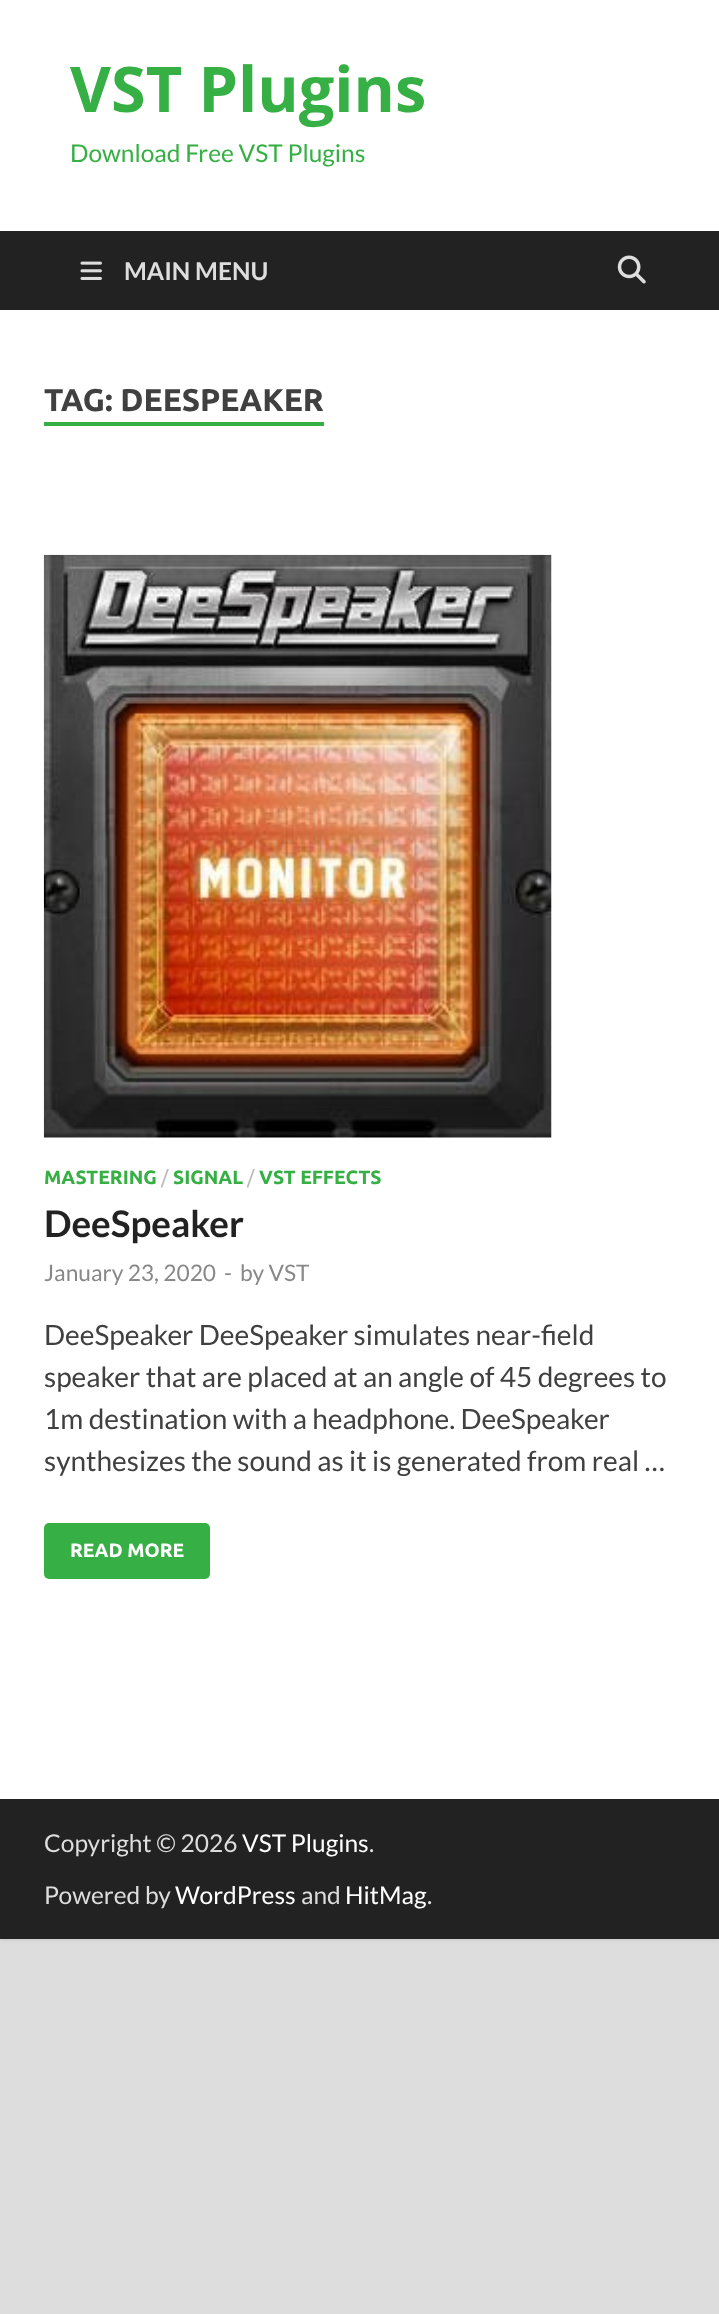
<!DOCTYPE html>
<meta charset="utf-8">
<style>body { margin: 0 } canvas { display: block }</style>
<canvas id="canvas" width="719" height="2314"></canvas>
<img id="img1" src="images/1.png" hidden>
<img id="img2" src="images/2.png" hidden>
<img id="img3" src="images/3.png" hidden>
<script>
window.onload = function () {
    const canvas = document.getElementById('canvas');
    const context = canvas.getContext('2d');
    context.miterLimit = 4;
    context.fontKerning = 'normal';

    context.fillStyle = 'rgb(221, 221, 221)';
    context.fillRect(0, 0, 719, 2314);
    context.fillStyle = 'rgb(187, 187, 187)';
    context.filter = 'blur(2px)';
    context.beginPath();
    context.rect(0, 0, 719, 1939);
    context.fill();
    context.filter = 'none';
    context.fillStyle = 'rgb(255, 255, 255)';
    context.fillRect(0, 0, 719, 1799);
    context.fillStyle = 'rgb(34, 34, 34)';
    context.fillRect(0, 231, 719, 79);
    context.drawImage(document.getElementById('img1'), 80, 261, 22, 19);
    context.drawImage(document.getElementById('img2'), 617, 255, 29, 29);
    context.fillStyle = 'rgb(54, 175, 68)';
    context.fillRect(44, 422, 280, 4);
    context.drawImage(document.getElementById('img3'), 43, 554, 509, 584);
    context.beginPath();
    context.roundRect(44, 1523, 166, 56, 5);
    context.fill();
    context.fillStyle = 'rgb(34, 34, 34)';
    context.fillRect(0, 1799, 719, 140);
    context.font = 'bold 63px Open Sans';
    context.fillStyle = 'rgb(54, 175, 68)';
    context.fillText('VST Plugins', 70, 112);
    context.font = '24.5px Lato';
    context.fillText('Download Free VST Plugins', 70, 162);
    context.font = 'bold 24.5px Lato';
    context.fillStyle = 'rgb(221, 221, 221)';
    context.fillText('MAIN MENU', 124, 280);
    context.font = 'bold 31.5px Ubuntu';
    context.fillStyle = 'rgb(64, 64, 64)';
    context.fillText('TAG: DEESPEAKER', 44, 411);
    context.font = 'bold 19.25px Ubuntu';
    context.fillStyle = 'rgb(54, 175, 68)';
    context.fillText('MASTERING', 44, 1184);
    context.font = '19.25px Ubuntu';
    context.fillStyle = 'rgb(187, 187, 187)';
    context.fillText('/', 161, 1184);
    context.font = 'bold 19.25px Ubuntu';
    context.fillStyle = 'rgb(54, 175, 68)';
    context.fillText('SIGNAL', 173, 1184);
    context.font = '19.25px Ubuntu';
    context.fillStyle = 'rgb(187, 187, 187)';
    context.fillText('/', 247, 1184);
    context.font = 'bold 19.25px Ubuntu';
    context.fillStyle = 'rgb(54, 175, 68)';
    context.fillText('VST EFFECTS', 259, 1184);
    context.font = 'bold 36.75px Lato';
    context.fillStyle = 'rgb(34, 34, 34)';
    context.fillText('DeeSpeaker', 44, 1237);
    context.font = '22.75px Lato';
    context.fillStyle = 'rgb(136, 136, 136)';
    context.fillText('January 23, 2020', 44, 1281);
    context.fillText('-', 224, 1281);
    context.fillText('by VST', 240, 1281);
    context.font = '28px Lato';
    context.fillStyle = 'rgb(64, 64, 64)';
    context.fillText('DeeSpeaker DeeSpeaker simulates near-field', 44, 1345);
    context.fillText('speaker that are placed at an angle of 45 degrees to', 44, 1387);
    context.fillText('1m destination with a headphone. DeeSpeaker', 44, 1429);
    context.fillText('synthesizes the sound as it is generated from real …', 44, 1471);
    context.font = 'bold 19.25px Ubuntu';
    context.fillStyle = 'rgb(255, 255, 255)';
    context.fillText('READ MORE', 70, 1557);
    context.font = '24.5px Lato';
    context.fillStyle = 'rgb(221, 221, 221)';
    context.fillText('Copyright © 2026', 44, 1852);
    context.fillStyle = 'rgb(255, 255, 255)';
    context.fillText('VST Plugins', 242, 1852);
    context.fillStyle = 'rgb(221, 221, 221)';
    context.fillText('.', 369, 1852);
    context.fillText('Powered by', 44, 1904);
    context.fillStyle = 'rgb(255, 255, 255)';
    context.fillText('WordPress', 175, 1904);
    context.fillStyle = 'rgb(221, 221, 221)';
    context.fillText('and', 301, 1904);
    context.fillStyle = 'rgb(255, 255, 255)';
    context.fillText('HitMag', 345, 1904);
    context.fillStyle = 'rgb(221, 221, 221)';
    context.fillText('.', 427, 1904);
};
</script>
